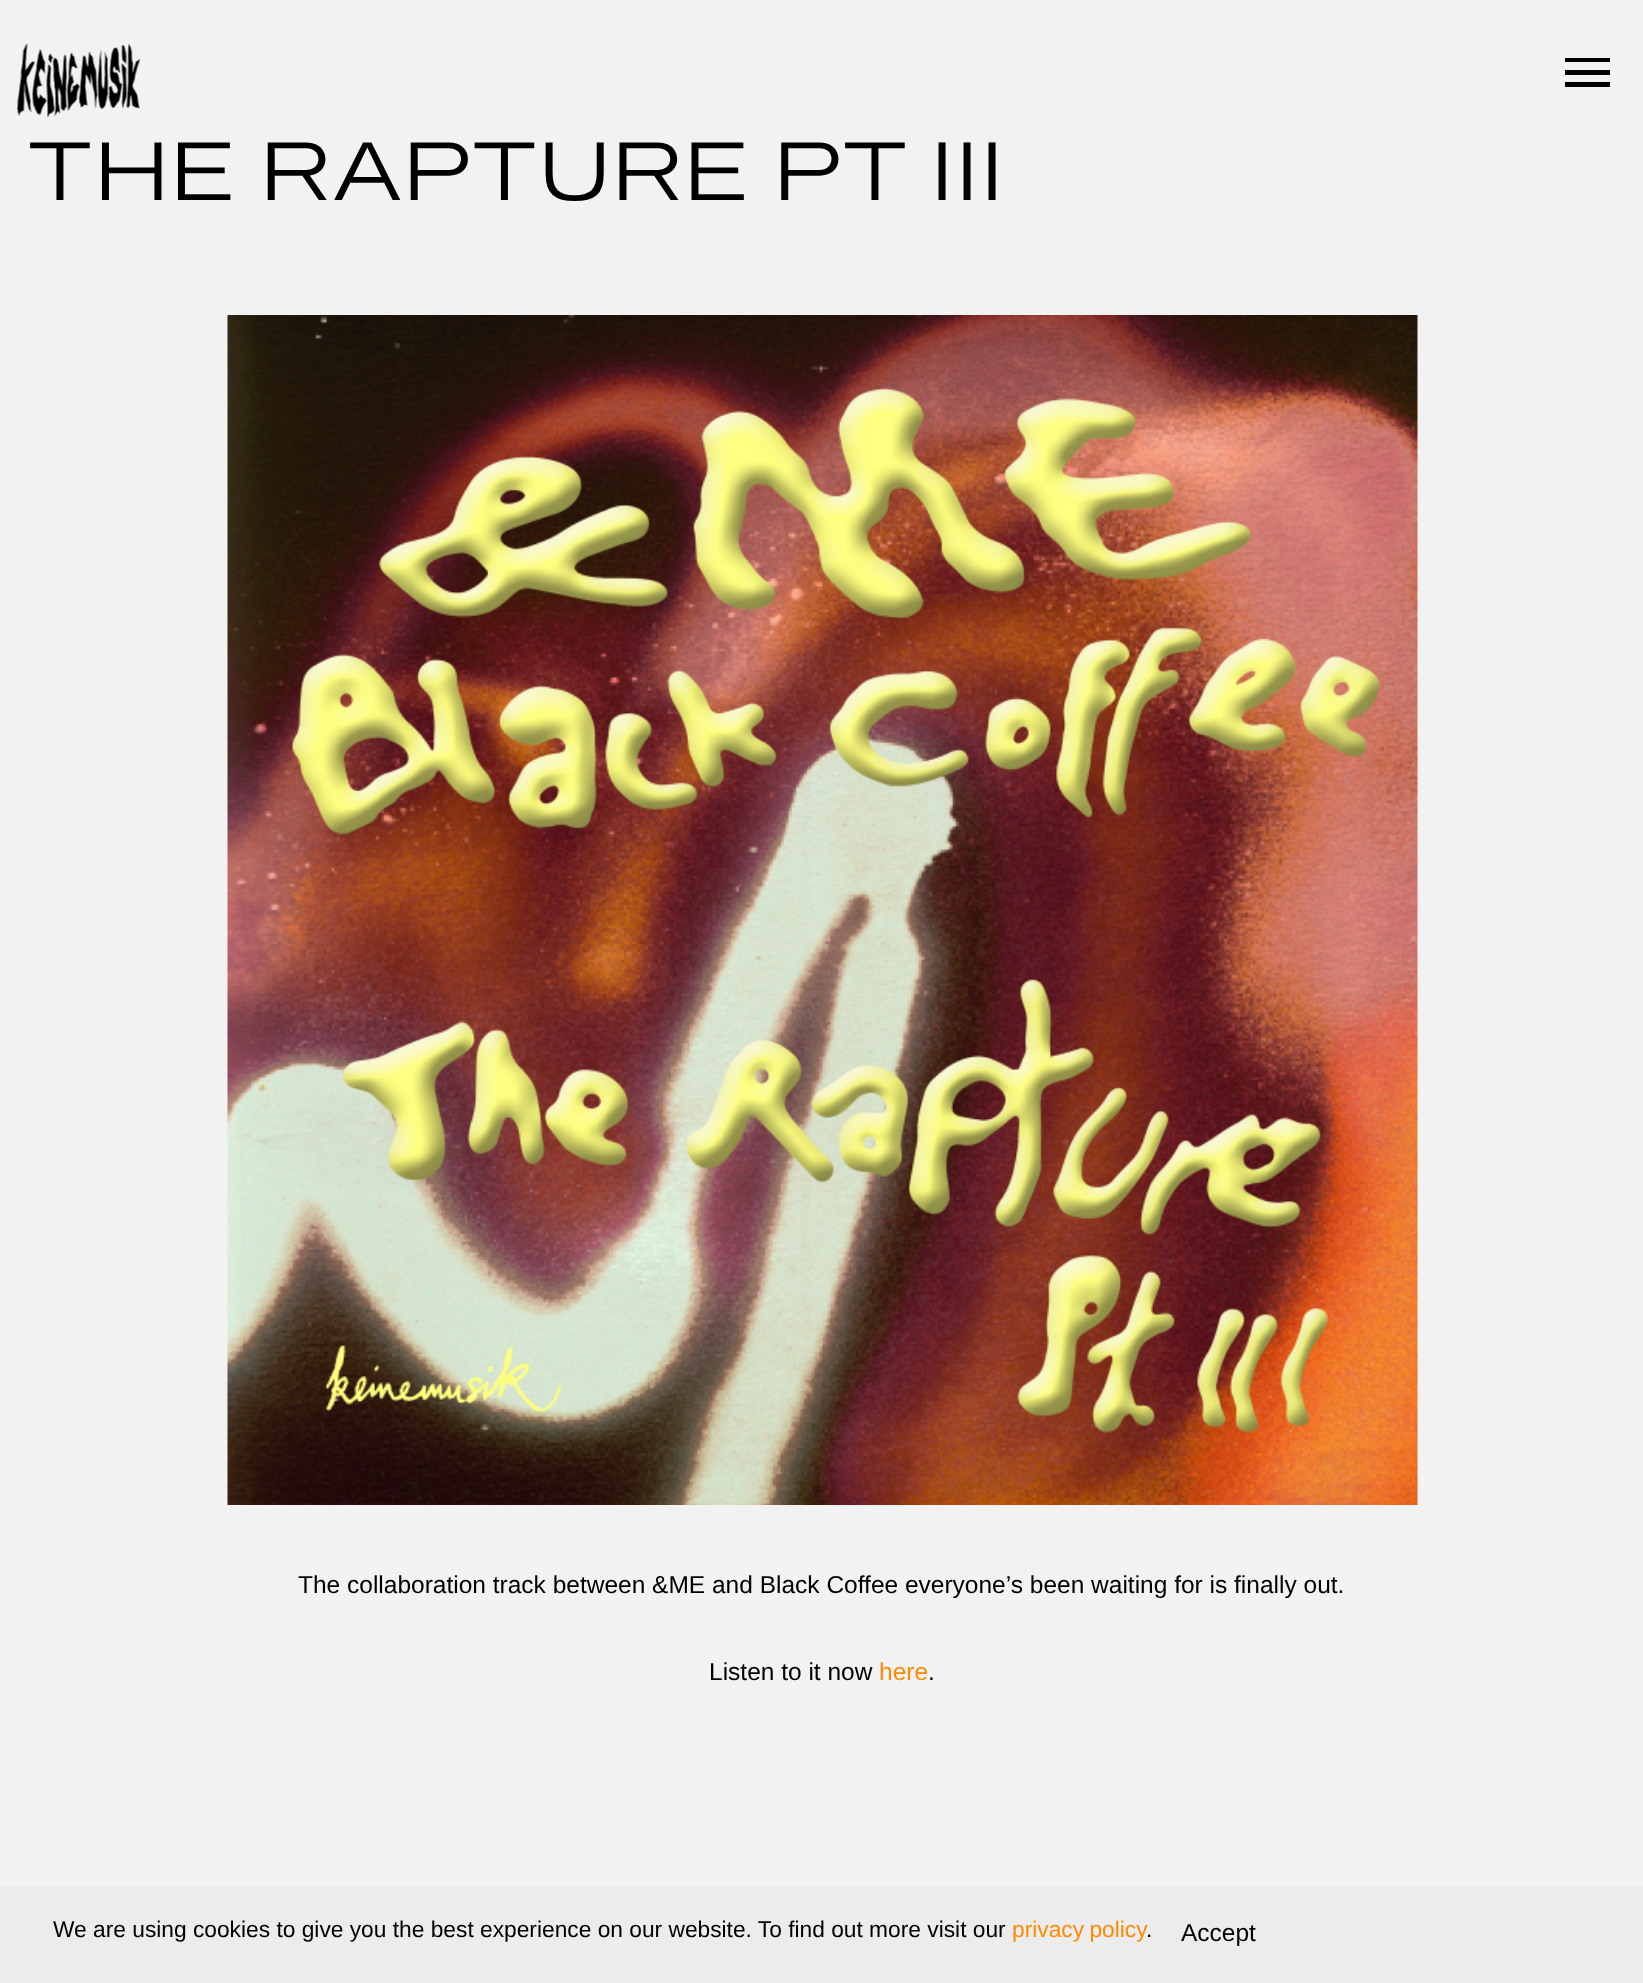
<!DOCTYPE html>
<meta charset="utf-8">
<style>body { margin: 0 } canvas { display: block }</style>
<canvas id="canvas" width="1643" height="1983"></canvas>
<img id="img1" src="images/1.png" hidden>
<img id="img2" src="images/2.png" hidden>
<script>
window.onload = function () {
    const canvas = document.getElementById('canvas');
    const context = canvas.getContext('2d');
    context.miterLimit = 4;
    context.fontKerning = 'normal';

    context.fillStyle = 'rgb(242, 242, 242)';
    context.fillRect(0, 0, 1643, 1983);
    context.drawImage(document.getElementById('img1'), 17, 43, 124, 75);
    context.fillStyle = 'rgb(0, 0, 0)';
    context.fillRect(1565, 58, 45, 4);
    context.fillRect(1565, 70, 45, 5);
    context.fillRect(1565, 82, 45, 5);
    context.drawImage(document.getElementById('img2'), 227, 315, 1191, 1190);
    context.fillStyle = 'rgb(236, 236, 236)';
    context.fillRect(0, 1887, 1643, 96);
    context.font = '82.25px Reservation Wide';
    context.fillStyle = 'rgb(0, 0, 0)';
    context.fillText('THE RAPTURE PT III', 26, 200);
    context.font = '24.5px Liberation Sans';
    context.fillText('The collaboration track between &ME and Black Coffee everyone’s been waiting for is finally out.', 298, 1593);
    context.fillText('Listen to it now', 709, 1680);
    context.fillStyle = 'rgb(255, 137, 0)';
    context.fillText('here', 879, 1680);
    context.fillStyle = 'rgb(0, 0, 0)';
    context.fillText('.', 928, 1680);
    context.font = '22.75px Liberation Sans';
    context.fillText('We are using cookies to give you the best experience on our website. To find out more visit our', 53, 1937);
    context.wordSpacing = '-1px';
    context.fillStyle = 'rgb(255, 137, 0)';
    context.fillText('privacy policy', 1012, 1937);
    context.wordSpacing = '0px';
    context.fillStyle = 'rgb(0, 0, 0)';
    context.fillText('.', 1146, 1937);
    context.font = '24.5px Liberation Sans';
    context.fillText('Accept', 1181, 1941);
};
</script>
